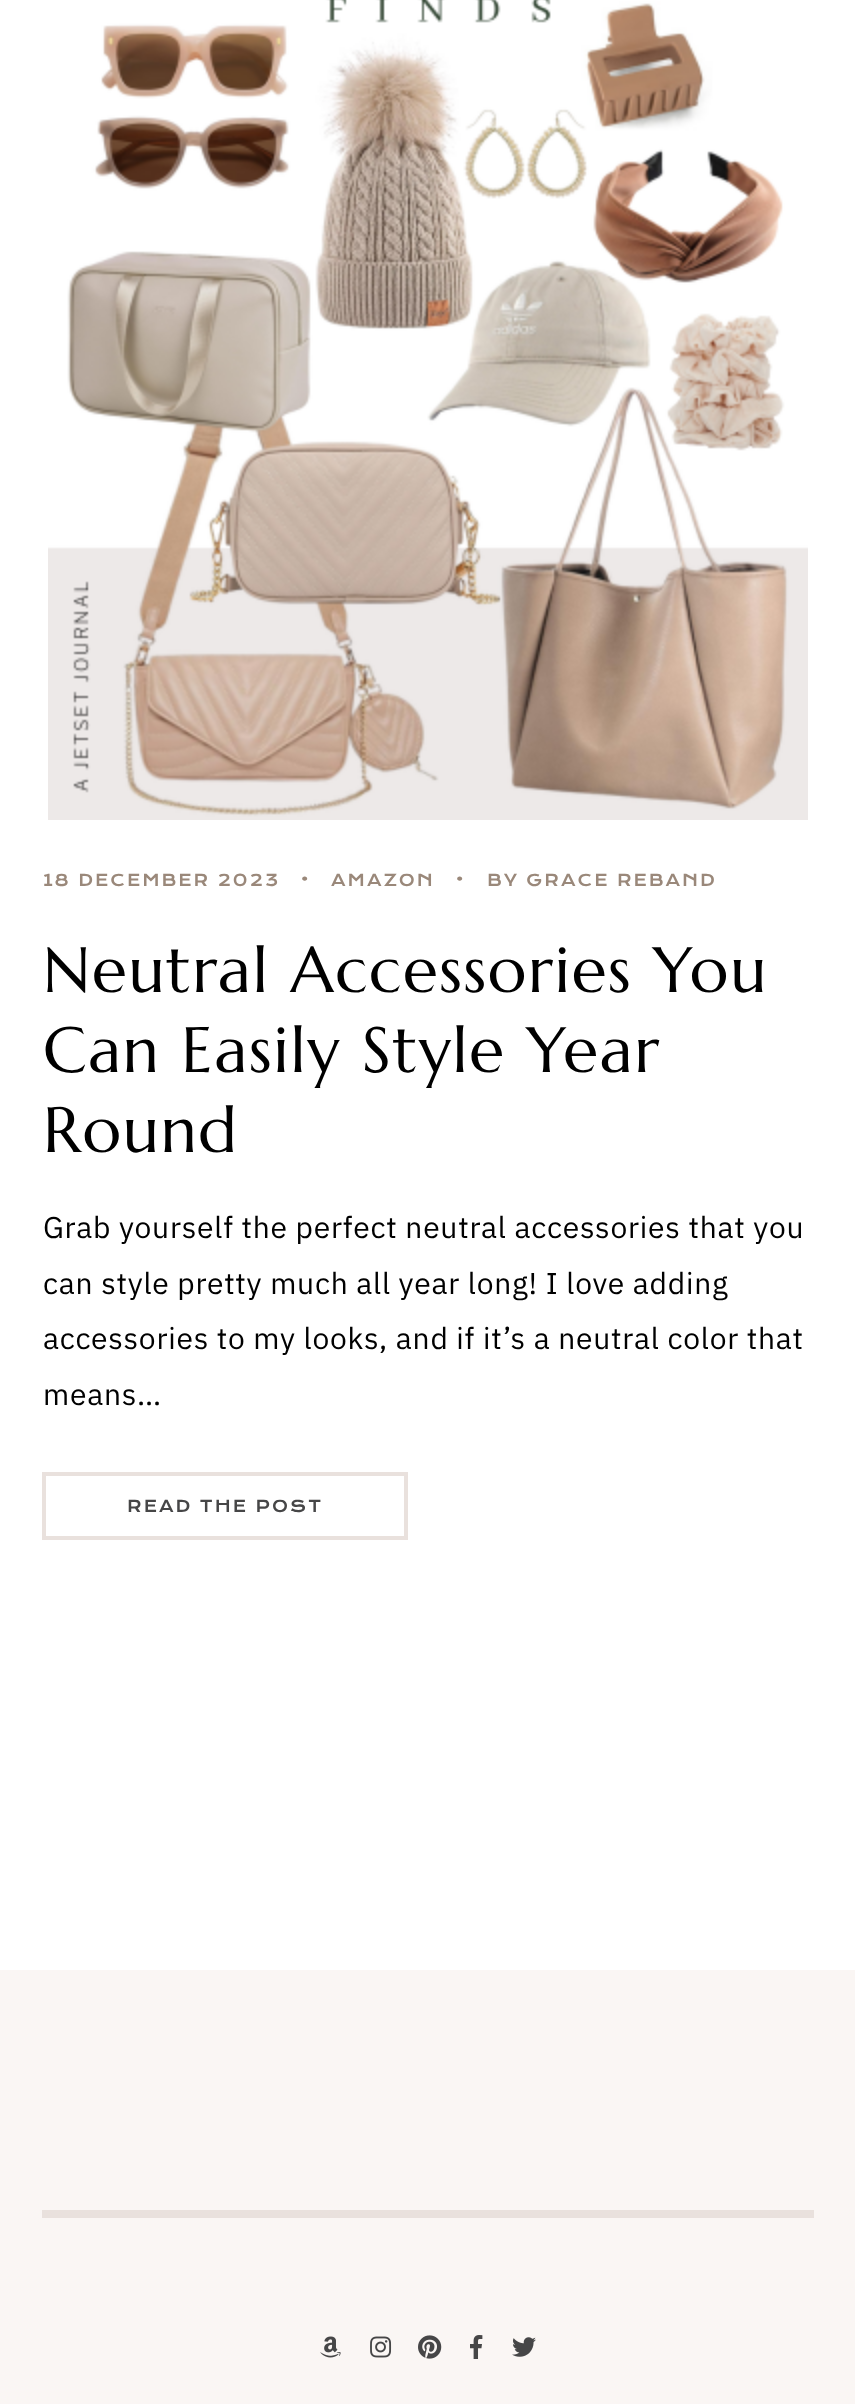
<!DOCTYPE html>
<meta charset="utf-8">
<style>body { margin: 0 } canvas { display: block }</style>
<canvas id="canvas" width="855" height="2404"></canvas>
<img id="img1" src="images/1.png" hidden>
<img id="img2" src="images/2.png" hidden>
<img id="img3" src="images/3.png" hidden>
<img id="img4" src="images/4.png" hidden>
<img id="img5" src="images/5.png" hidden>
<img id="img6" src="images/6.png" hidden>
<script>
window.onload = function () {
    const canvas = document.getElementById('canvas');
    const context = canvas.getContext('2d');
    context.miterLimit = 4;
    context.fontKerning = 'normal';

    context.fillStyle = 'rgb(255, 255, 255)';
    context.fillRect(0, 0, 855, 2404);
    context.drawImage(document.getElementById('img1'), 48, 0, 760, 820);
    context.strokeStyle = 'rgb(233, 225, 221)';
    context.lineWidth = 4;
    context.strokeRect(44, 1474, 362, 64);
    context.fillStyle = 'rgb(250, 246, 244)';
    context.fillRect(0, 1970, 855, 434);
    context.fillStyle = 'rgb(233, 225, 221)';
    context.fillRect(42, 2210, 772, 8);
    context.drawImage(document.getElementById('img2'), 320, 2336, 21, 22);
    context.drawImage(document.getElementById('img3'), 370, 2336, 22, 22);
    context.drawImage(document.getElementById('img4'), 418, 2335, 24, 24);
    context.drawImage(document.getElementById('img5'), 470, 2335, 13, 24);
    context.drawImage(document.getElementById('img6'), 512, 2337, 24, 20);
    context.letterSpacing = '2px';
    context.font = '16px Krona One';
    context.fillStyle = 'rgb(154, 136, 122)';
    context.fillText('18 DECEMBER 2023', 43, 886);
    context.fillText('•', 300, 886);
    context.fillText('AMAZON', 331, 886);
    context.fillText('•', 455, 886);
    context.fillText('BY GRACE REBAND', 487, 886);
    context.letterSpacing = '1.6px';
    context.font = '64px Marcellus';
    context.fillStyle = 'rgb(0, 0, 0)';
    context.fillText('Neutral Accessories You', 43, 992);
    context.fillText('Can Easily Style Year', 43, 1072);
    context.fillText('Round', 43, 1152);
    context.letterSpacing = '0.75px';
    context.font = '30px IBM Plex Sans';
    context.fillText('Grab yourself the perfect neutral accessories that you', 43, 1238);
    context.fillText('can style pretty much all year long! I love adding', 43, 1294);
    context.fillText('accessories to my looks, and if it’s a neutral color that', 43, 1349);
    context.fillText('means…', 43, 1405);
    context.letterSpacing = '2px';
    context.font = '16px Krona One';
    context.fillStyle = 'rgb(70, 70, 71)';
    context.fillText('READ THE POST', 127, 1512);
};
</script>
